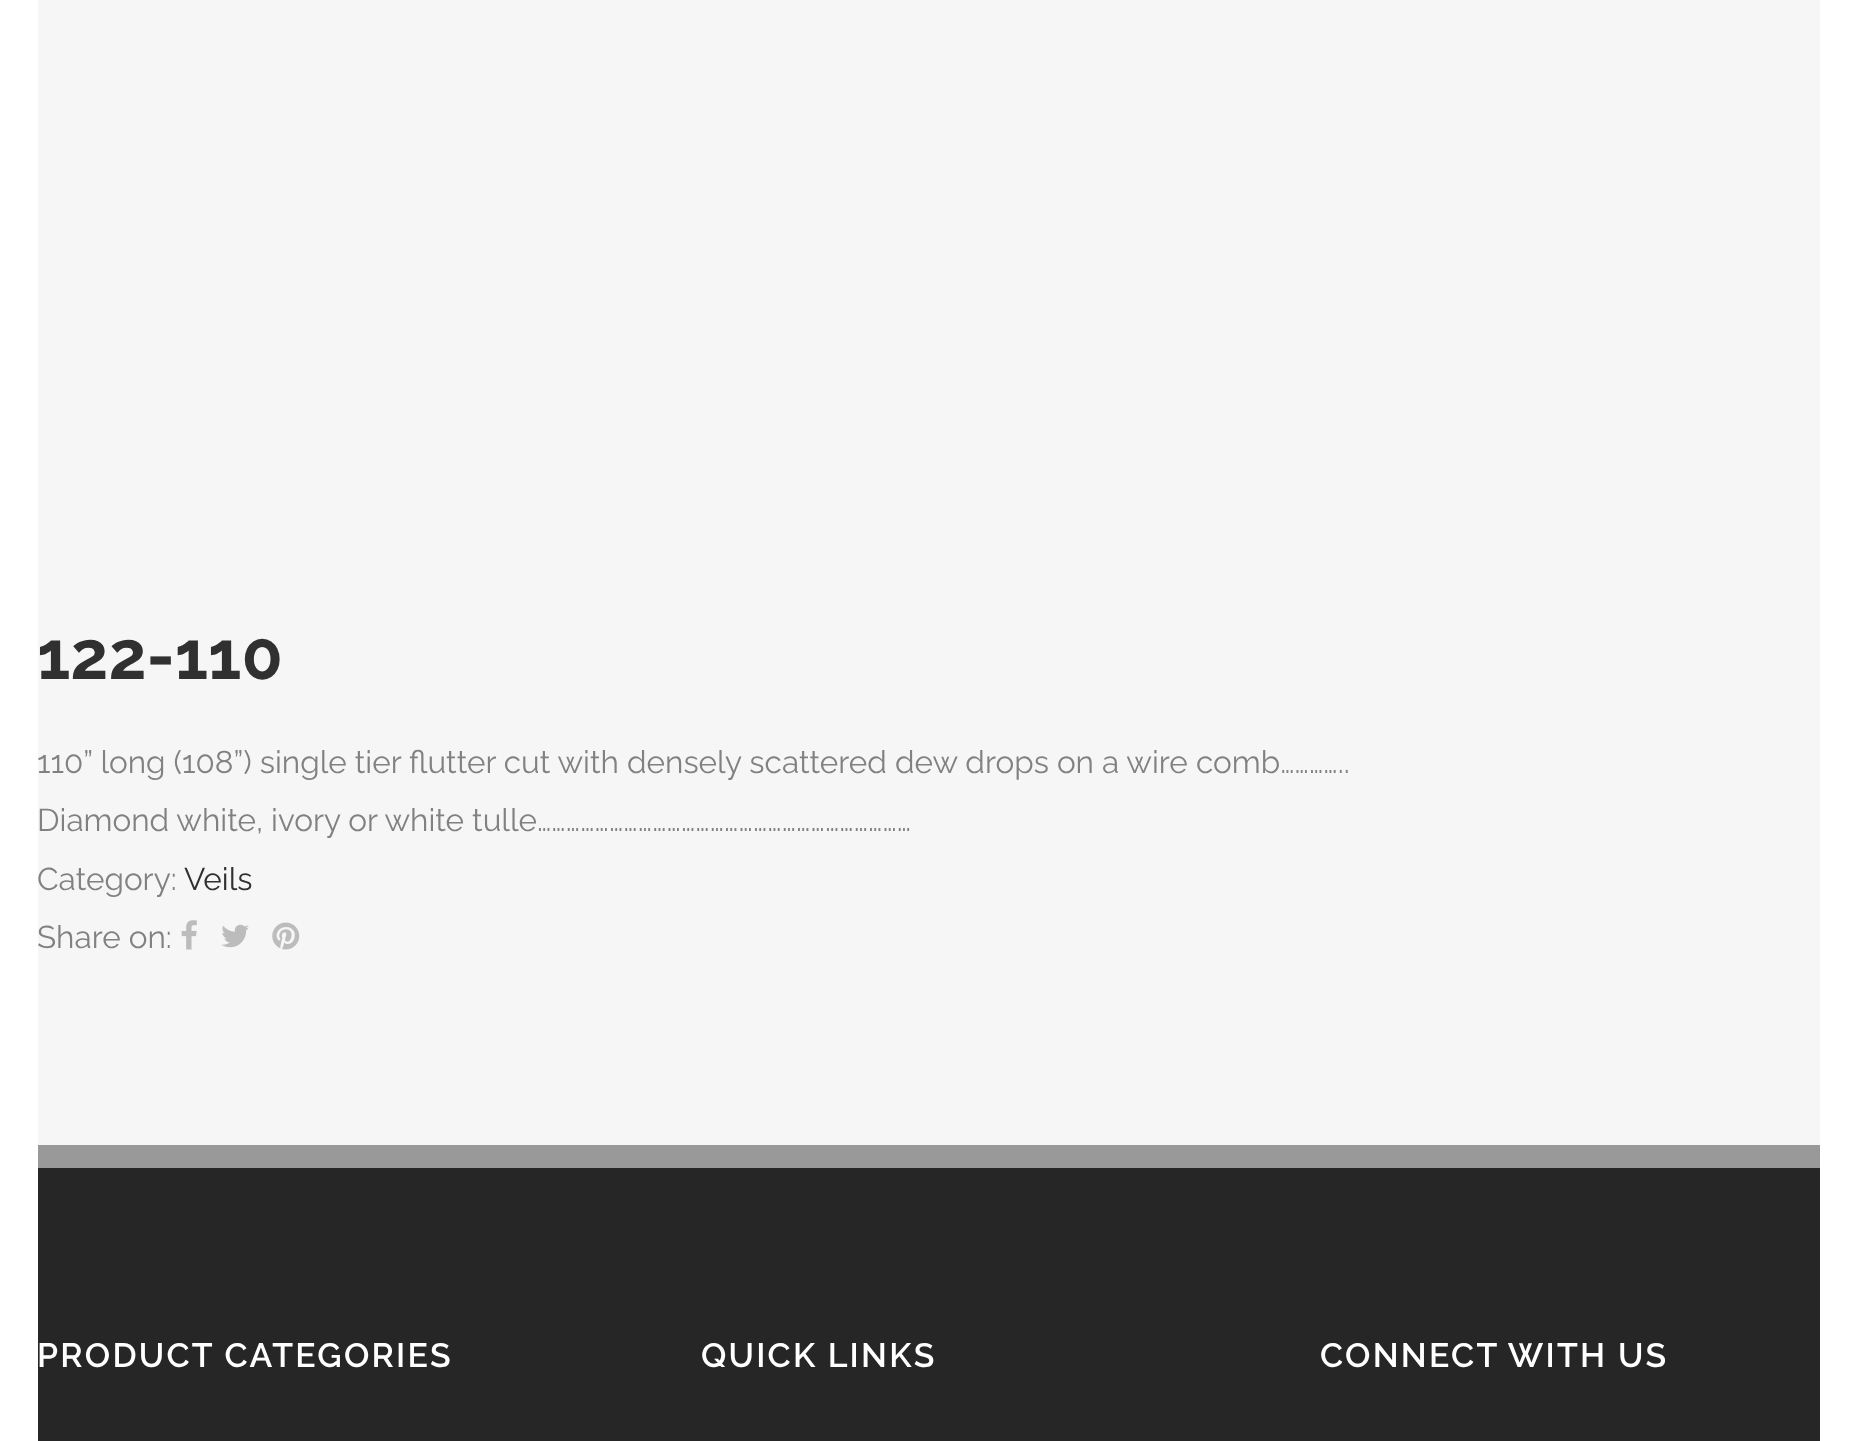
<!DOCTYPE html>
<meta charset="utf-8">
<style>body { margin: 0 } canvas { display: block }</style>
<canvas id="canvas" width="1857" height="1441"></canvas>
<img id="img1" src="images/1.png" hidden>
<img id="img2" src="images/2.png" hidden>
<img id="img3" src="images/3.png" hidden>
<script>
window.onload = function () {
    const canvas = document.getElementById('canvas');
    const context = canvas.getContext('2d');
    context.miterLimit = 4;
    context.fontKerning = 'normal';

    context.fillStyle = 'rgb(246, 246, 246)';
    context.fillRect(0, 0, 1857, 1441);
    context.fillStyle = 'rgb(255, 255, 255)';
    context.fillRect(0, 0, 38, 1441);
    context.drawImage(document.getElementById('img1'), 181, 920, 16, 30);
    context.drawImage(document.getElementById('img2'), 221, 924, 28, 24);
    context.drawImage(document.getElementById('img3'), 272, 922, 28, 28);
    context.fillRect(1820, 0, 37, 1441);
    context.fillStyle = 'rgb(38, 38, 38)';
    context.fillRect(38, 1168, 1782, 273);
    context.fillStyle = 'rgb(153, 153, 153)';
    context.fillRect(38, 1145, 1782, 23);
    context.font = 'bold 67.5px Raleway';
    context.fillStyle = 'rgb(48, 48, 48)';
    context.fillText('122-110', 37, 679);
    context.font = '31.5px Raleway';
    context.fillStyle = 'rgb(129, 129, 129)';
    context.fillText('110” long (108”) single tier flutter cut with densely scattered dew drops on a wire comb…………..', 37, 773);
    context.fillText('Diamond white, ivory or white tulle……………………………………………………………………', 37, 831);
    context.fillText('Category:', 37, 890);
    context.fillStyle = 'rgb(48, 48, 48)';
    context.fillText('Veils', 184, 890);
    context.fillStyle = 'rgb(129, 129, 129)';
    context.fillText('Share on:', 37, 948);
    context.letterSpacing = '2.25px';
    context.font = '600 33.75px Raleway';
    context.fillStyle = 'rgb(255, 255, 255)';
    context.fillText('PRODUCT CATEGORIES', 37, 1367);
    context.fillText('QUICK LINKS', 701, 1367);
    context.fillText('CONNECT WITH US', 1320, 1367);
};
</script>
